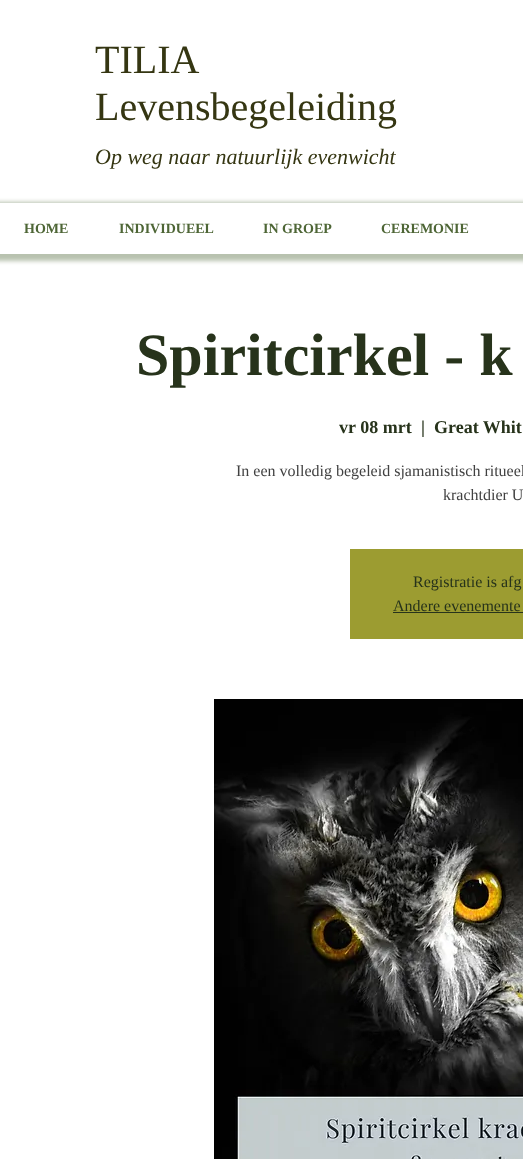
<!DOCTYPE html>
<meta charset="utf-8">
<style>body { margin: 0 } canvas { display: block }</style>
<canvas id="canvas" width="523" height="1159"></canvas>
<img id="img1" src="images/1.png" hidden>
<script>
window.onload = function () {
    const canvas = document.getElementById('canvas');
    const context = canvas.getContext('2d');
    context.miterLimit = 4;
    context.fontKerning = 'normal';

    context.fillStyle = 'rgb(255, 255, 255)';
    context.fillRect(0, 0, 523, 1159);
    context.save();
    context.beginPath();
    context.moveTo(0, 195);
    context.lineTo(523, 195);
    context.lineTo(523, 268);
    context.lineTo(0, 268);
    context.closePath();
    context.moveTo(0, 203);
    context.lineTo(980, 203);
    context.lineTo(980, 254);
    context.lineTo(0, 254);
    context.closePath();
    context.clip('evenodd');
    context.fillStyle = 'rgba(78, 102, 54, 0.4)';
    context.filter = 'blur(2px)';
    context.beginPath();
    context.rect(-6, 202, 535, 59);
    context.fill();
    context.filter = 'none';
    context.restore();
    context.fillStyle = 'rgb(156, 156, 49)';
    context.fillRect(350, 549, 173, 90);
    context.fillStyle = 'rgb(39, 51, 27)';
    context.fillRect(393, 612, 130, 1);
    context.drawImage(document.getElementById('img1'), 214, 699, 309, 460);
    context.font = '40px Liberation Serif';
    context.fillStyle = 'rgb(53, 54, 18)';
    context.fillText('TILIA', 95, 73);
    context.fillText('Levensbegeleiding', 95, 120);
    context.font = 'italic 22px Liberation Serif';
    context.fillText('Op weg naar natuurlijk evenwicht', 95, 164);
    context.font = 'bold 14px Liberation Serif';
    context.fillStyle = 'rgb(78, 102, 54)';
    context.fillText('HOME', 24, 233);
    context.fillText('INDIVIDUEEL', 119, 233);
    context.fillText('IN GROEP', 263, 233);
    context.fillText('CEREMONIE', 381, 233);
    context.font = 'bold 60px Liberation Serif';
    context.fillStyle = 'rgb(39, 51, 27)';
    context.fillText('Spiritcirkel - k', 136, 375);
    context.font = 'bold 18px Liberation Serif';
    context.fillText('vr 08 mrt', 339, 433);
    context.fillText('|', 421, 433);
    context.fillText('Great Whit', 434, 433);
    context.font = '16px Liberation Serif';
    context.fillStyle = 'rgb(65, 65, 65)';
    context.fillText('In een volledig begeleid sjamanistisch ritueel', 236, 476);
    context.fillText('krachtdier U', 443, 500);
    context.fillStyle = 'rgb(39, 51, 27)';
    context.fillText('Registratie is afg', 413, 587);
    context.fillText('Andere evenemente', 393, 611);
};
</script>
